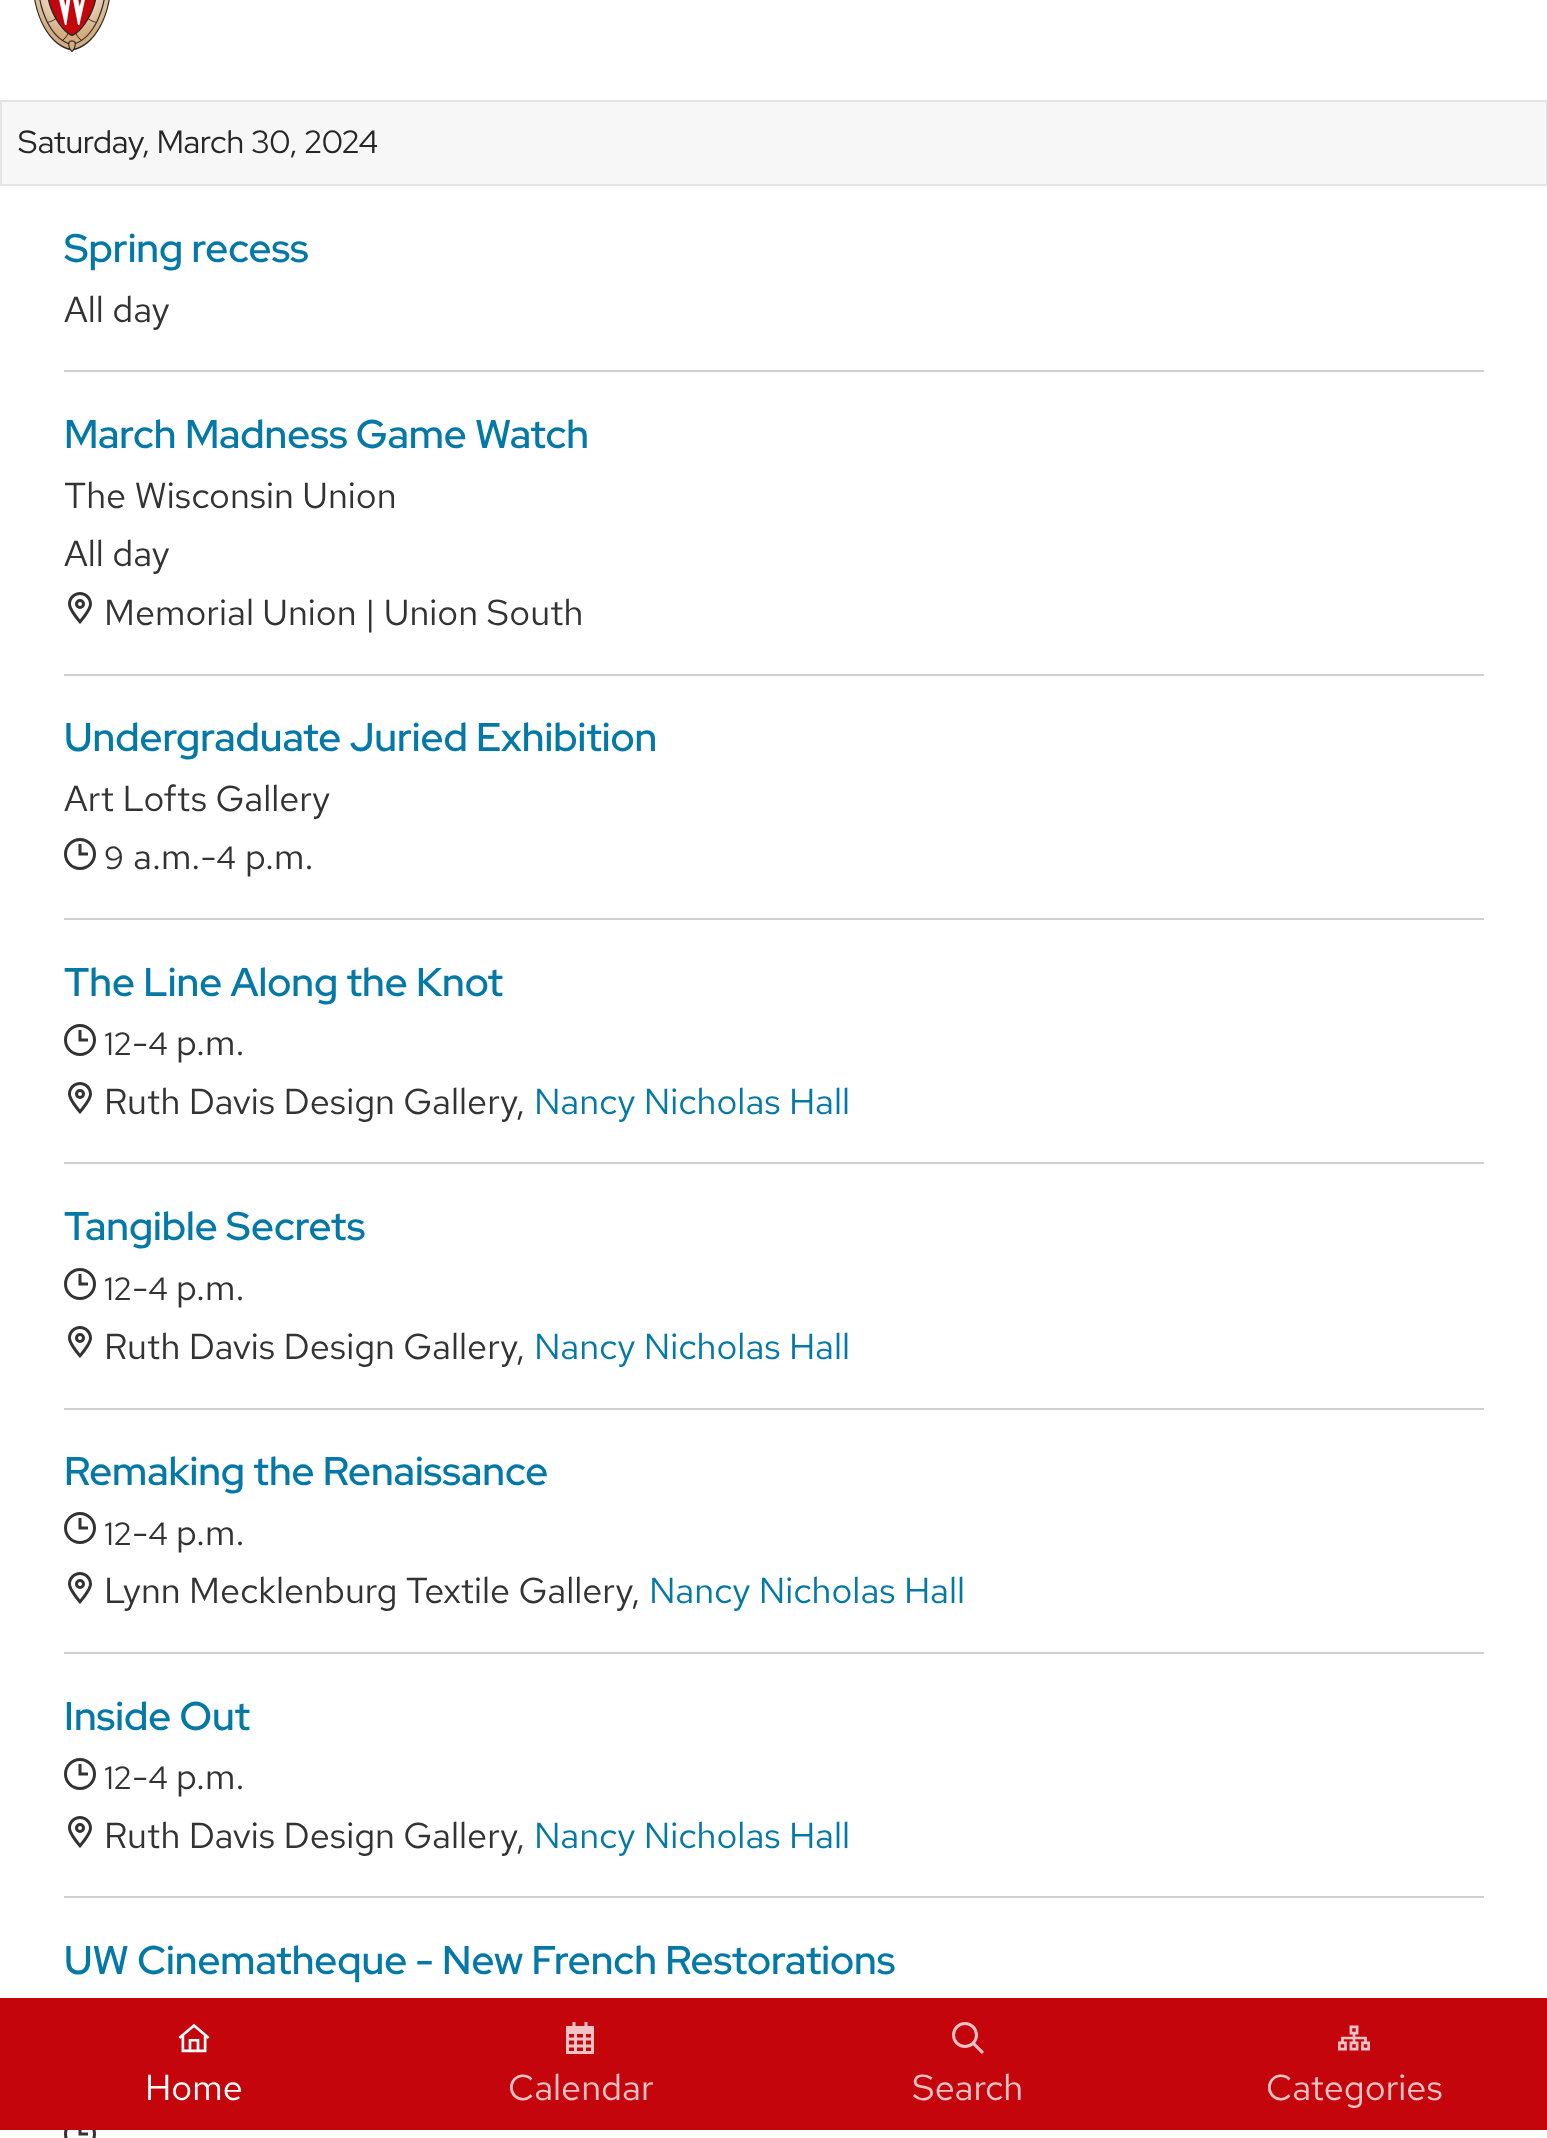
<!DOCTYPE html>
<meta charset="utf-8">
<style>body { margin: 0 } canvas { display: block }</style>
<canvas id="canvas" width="1547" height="2138"></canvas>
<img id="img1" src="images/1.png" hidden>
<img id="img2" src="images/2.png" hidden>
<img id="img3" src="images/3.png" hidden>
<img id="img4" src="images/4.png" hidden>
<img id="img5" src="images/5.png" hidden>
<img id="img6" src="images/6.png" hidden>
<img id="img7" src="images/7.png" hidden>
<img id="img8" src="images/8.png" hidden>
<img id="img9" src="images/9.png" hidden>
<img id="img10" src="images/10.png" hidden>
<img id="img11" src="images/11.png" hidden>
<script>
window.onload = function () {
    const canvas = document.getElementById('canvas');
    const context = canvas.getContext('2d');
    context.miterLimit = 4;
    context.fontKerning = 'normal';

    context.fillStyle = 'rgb(255, 255, 255)';
    context.fillRect(0, 0, 1547, 2138);
    context.drawImage(document.getElementById('img1'), 34, 0, 76, 52);
    context.fillStyle = 'rgb(247, 247, 247)';
    context.beginPath();
    context.rect(1, 101, 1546, 84);
    context.fill();
    context.strokeStyle = 'rgb(228, 228, 228)';
    context.lineWidth = 2;
    context.stroke();
    context.fillStyle = 'rgb(207, 207, 207)';
    context.fillRect(64, 370, 1420, 2);
    context.drawImage(document.getElementById('img2'), 68, 592, 24, 32);
    context.fillRect(64, 674, 1420, 2);
    context.drawImage(document.getElementById('img3'), 64, 838, 32, 32);
    context.fillRect(64, 918, 1420, 2);
    context.drawImage(document.getElementById('img4'), 64, 1024, 32, 32);
    context.drawImage(document.getElementById('img5'), 68, 1082, 24, 32);
    context.fillRect(64, 1162, 1420, 2);
    context.drawImage(document.getElementById('img4'), 64, 1268, 32, 32);
    context.drawImage(document.getElementById('img6'), 68, 1326, 24, 32);
    context.fillRect(64, 1408, 1420, 2);
    context.drawImage(document.getElementById('img4'), 64, 1512, 32, 32);
    context.drawImage(document.getElementById('img2'), 68, 1572, 24, 32);
    context.fillRect(64, 1652, 1420, 2);
    context.drawImage(document.getElementById('img4'), 64, 1758, 32, 32);
    context.drawImage(document.getElementById('img2'), 68, 1816, 24, 32);
    context.fillRect(64, 1896, 1420, 2);
    context.drawImage(document.getElementById('img7'), 64, 2130, 32, 8);
    context.fillStyle = 'rgb(197, 5, 12)';
    context.fillRect(0, 1998, 1547, 132);
    context.drawImage(document.getElementById('img8'), 178, 2023, 32, 30);
    context.drawImage(document.getElementById('img9'), 566, 2022, 28, 32);
    context.drawImage(document.getElementById('img10'), 952, 2022, 32, 32);
    context.drawImage(document.getElementById('img11'), 1338, 2025, 32, 26);
    context.font = '32px Red Hat Display';
    context.fillStyle = 'rgb(40, 39, 40)';
    context.fillText('Saturday, March 30, 2024', 18, 153);
    context.font = '600 40px Red Hat Display';
    context.fillStyle = 'rgb(4, 121, 168)';
    context.fillText('Spring recess', 64, 262);
    context.font = '36px Red Hat Text';
    context.fillStyle = 'rgb(51, 51, 51)';
    context.fillText('All day', 64, 322);
    context.font = '600 40px Red Hat Display';
    context.fillStyle = 'rgb(4, 121, 168)';
    context.fillText('March Madness Game Watch', 64, 448);
    context.font = '36px Red Hat Text';
    context.fillStyle = 'rgb(51, 51, 51)';
    context.fillText('The Wisconsin Union', 64, 508);
    context.fillText('All day', 64, 566);
    context.fillText('Memorial Union | Union South', 104, 625);
    context.font = '600 40px Red Hat Display';
    context.fillStyle = 'rgb(4, 121, 168)';
    context.fillText('Undergraduate Juried Exhibition', 64, 751);
    context.font = '36px Red Hat Text';
    context.fillStyle = 'rgb(51, 51, 51)';
    context.fillText('Art Lofts Gallery', 64, 811);
    context.font = '32px Red Hat Text';
    context.fillText('9', 104, 869);
    context.font = '36px Red Hat Text';
    context.fillText('a.m.-', 133, 869);
    context.font = '32px Red Hat Text';
    context.fillText('4', 216, 869);
    context.font = '36px Red Hat Text';
    context.fillText('p.m.', 245, 869);
    context.font = '600 40px Red Hat Display';
    context.fillStyle = 'rgb(4, 121, 168)';
    context.fillText('The Line Along the Knot', 64, 996);
    context.font = '32px Red Hat Text';
    context.fillStyle = 'rgb(51, 51, 51)';
    context.fillText('12', 104, 1055);
    context.font = '36px Red Hat Text';
    context.fillText('-', 132, 1055);
    context.font = '32px Red Hat Text';
    context.fillText('4', 148, 1055);
    context.font = '36px Red Hat Text';
    context.fillText('p.m.', 176, 1055);
    context.fillText('Ruth Davis Design Gallery,', 104, 1114);
    context.fillStyle = 'rgb(4, 121, 168)';
    context.fillText('Nancy Nicholas Hall', 534, 1114);
    context.font = '600 40px Red Hat Display';
    context.fillText('Tangible Secrets', 64, 1240);
    context.font = '32px Red Hat Text';
    context.fillStyle = 'rgb(51, 51, 51)';
    context.fillText('12', 104, 1300);
    context.font = '36px Red Hat Text';
    context.fillText('-', 132, 1300);
    context.font = '32px Red Hat Text';
    context.fillText('4', 148, 1300);
    context.font = '36px Red Hat Text';
    context.fillText('p.m.', 176, 1300);
    context.fillText('Ruth Davis Design Gallery,', 104, 1359);
    context.fillStyle = 'rgb(4, 121, 168)';
    context.fillText('Nancy Nicholas Hall', 534, 1359);
    context.font = '600 40px Red Hat Display';
    context.fillText('Remaking the Renaissance', 64, 1485);
    context.font = '32px Red Hat Text';
    context.fillStyle = 'rgb(51, 51, 51)';
    context.fillText('12', 104, 1545);
    context.font = '36px Red Hat Text';
    context.fillText('-', 132, 1545);
    context.font = '32px Red Hat Text';
    context.fillText('4', 148, 1545);
    context.font = '36px Red Hat Text';
    context.fillText('p.m.', 176, 1545);
    context.fillText('Lynn Mecklenburg Textile Gallery,', 104, 1603);
    context.fillStyle = 'rgb(4, 121, 168)';
    context.fillText('Nancy Nicholas Hall', 649, 1603);
    context.font = '600 40px Red Hat Display';
    context.fillText('Inside Out', 64, 1730);
    context.font = '32px Red Hat Text';
    context.fillStyle = 'rgb(51, 51, 51)';
    context.fillText('12', 104, 1789);
    context.font = '36px Red Hat Text';
    context.fillText('-', 132, 1789);
    context.font = '32px Red Hat Text';
    context.fillText('4', 148, 1789);
    context.font = '36px Red Hat Text';
    context.fillText('p.m.', 176, 1789);
    context.fillText('Ruth Davis Design Gallery,', 104, 1848);
    context.fillStyle = 'rgb(4, 121, 168)';
    context.fillText('Nancy Nicholas Hall', 534, 1848);
    context.font = '600 40px Red Hat Display';
    context.fillText('UW Cinematheque - New French Restorations', 64, 1974);
    context.font = '36px Red Hat Text';
    context.fillStyle = 'rgb(255, 255, 255)';
    context.fillText('Home', 145, 2100);
    context.fillStyle = 'rgb(241, 195, 197)';
    context.fillText('Calendar', 508, 2100);
    context.fillText('Search', 912, 2100);
    context.fillText('Categories', 1266, 2100);
};
</script>
